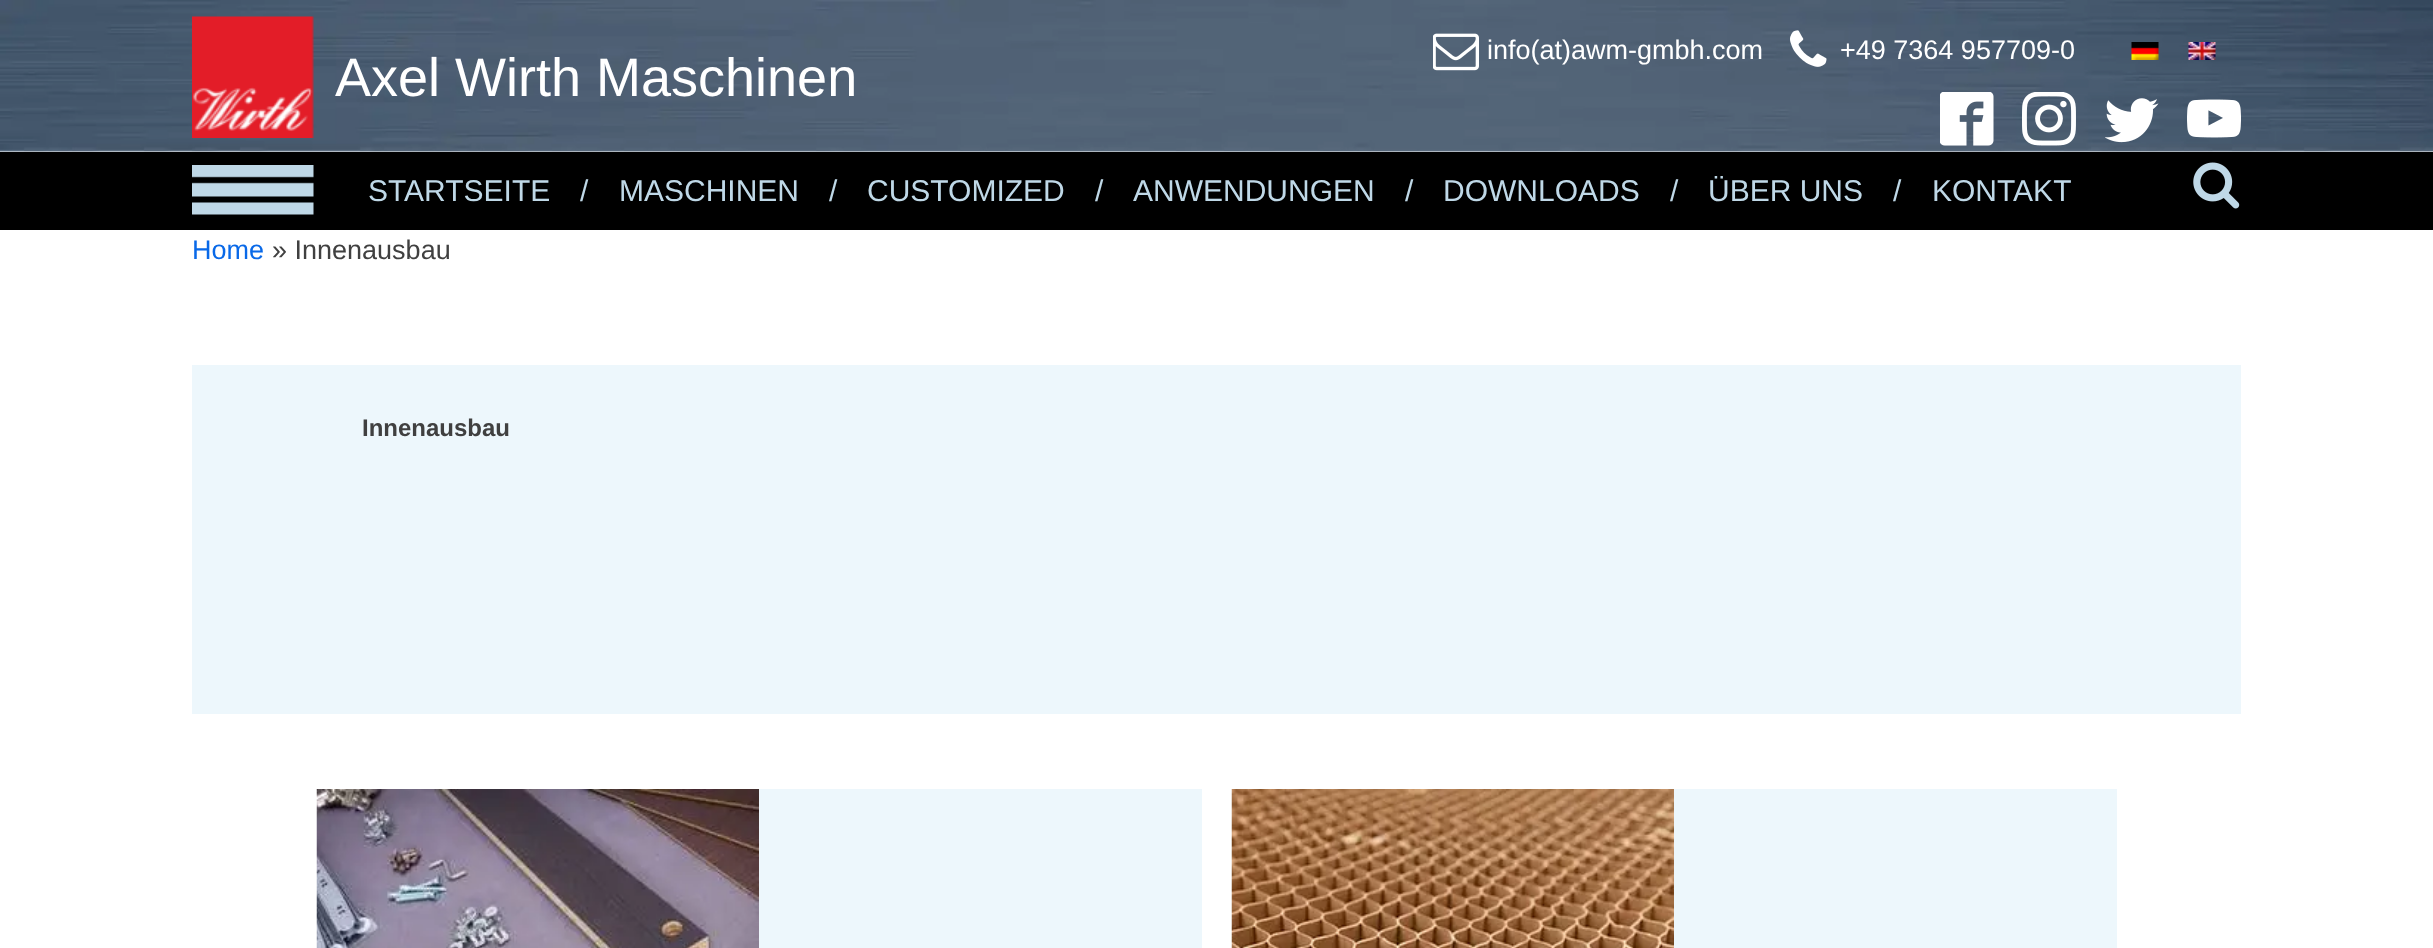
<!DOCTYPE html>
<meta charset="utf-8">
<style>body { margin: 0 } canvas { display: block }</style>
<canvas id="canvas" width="2433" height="948"></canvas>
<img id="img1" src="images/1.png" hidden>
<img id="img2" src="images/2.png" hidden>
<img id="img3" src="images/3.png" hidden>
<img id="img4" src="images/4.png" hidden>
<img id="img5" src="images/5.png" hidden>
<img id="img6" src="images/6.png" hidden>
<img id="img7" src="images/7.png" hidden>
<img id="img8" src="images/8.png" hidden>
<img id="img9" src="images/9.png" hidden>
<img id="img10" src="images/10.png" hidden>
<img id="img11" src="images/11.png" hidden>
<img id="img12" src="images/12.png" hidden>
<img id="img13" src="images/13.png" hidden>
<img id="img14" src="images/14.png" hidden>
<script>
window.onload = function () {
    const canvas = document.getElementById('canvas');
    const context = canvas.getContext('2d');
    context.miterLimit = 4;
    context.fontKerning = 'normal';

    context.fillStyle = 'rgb(255, 255, 255)';
    context.fillRect(0, 0, 2433, 948);
    context.drawImage(document.getElementById('img1'), 0, 0, 2433, 152);
    context.drawImage(document.getElementById('img2'), 1433, 33, 46, 38);
    context.drawImage(document.getElementById('img3'), 1790, 30, 37, 37);
    context.drawImage(document.getElementById('img4'), 2131, 42, 28, 18);
    context.drawImage(document.getElementById('img5'), 2188, 42, 28, 18);
    context.drawImage(document.getElementById('img6'), 1940, 92, 54, 54);
    context.drawImage(document.getElementById('img7'), 2022, 92, 54, 54);
    context.drawImage(document.getElementById('img8'), 2105, 98, 54, 45);
    context.drawImage(document.getElementById('img9'), 2187, 99, 54, 39);
    context.drawImage(document.getElementById('img10'), 192, 16, 122, 122);
    context.fillStyle = 'rgb(0, 0, 0)';
    context.fillRect(0, 152, 2433, 78);
    context.drawImage(document.getElementById('img11'), 192, 165, 122, 50);
    context.drawImage(document.getElementById('img12'), 2193, 162, 47, 47);
    context.fillStyle = 'rgb(237, 247, 252)';
    context.fillRect(192, 365, 2049, 349);
    context.fillRect(759, 789, 443, 159);
    context.drawImage(document.getElementById('img13'), 316, 789, 443, 159);
    context.fillRect(1674, 789, 443, 159);
    context.drawImage(document.getElementById('img14'), 1231, 789, 443, 159);
    context.font = '27px Liberation Sans';
    context.fillStyle = 'rgb(255, 255, 255)';
    context.fillText('info(at)awm-gmbh.com', 1487, 59);
    context.fillText('+49 7364 957709-0', 1840, 59);
    context.font = '54px Liberation Sans';
    context.fillText('Axel Wirth Maschinen', 335, 96);
    context.font = '30px Liberation Sans';
    context.fillStyle = 'rgb(191, 216, 231)';
    context.fillText('STARTSEITE', 368, 201);
    context.fillText('/', 580, 201);
    context.fillText('MASCHINEN', 619, 201);
    context.fillText('/', 829, 201);
    context.fillText('CUSTOMIZED', 867, 201);
    context.fillText('/', 1095, 201);
    context.fillText('ANWENDUNGEN', 1133, 201);
    context.fillText('/', 1405, 201);
    context.fillText('DOWNLOADS', 1443, 201);
    context.fillText('/', 1670, 201);
    context.fillText('ÜBER UNS', 1708, 201);
    context.fillText('/', 1893, 201);
    context.fillText('KONTAKT', 1932, 201);
    context.font = '27px Liberation Sans';
    context.fillStyle = 'rgb(9, 105, 232)';
    context.fillText('Home', 192, 259);
    context.fillStyle = 'rgb(64, 64, 64)';
    context.fillText('» Innenausbau', 272, 259);
    context.font = 'bold 24px Liberation Sans';
    context.fillText('Innenausbau', 362, 436);
};
</script>
